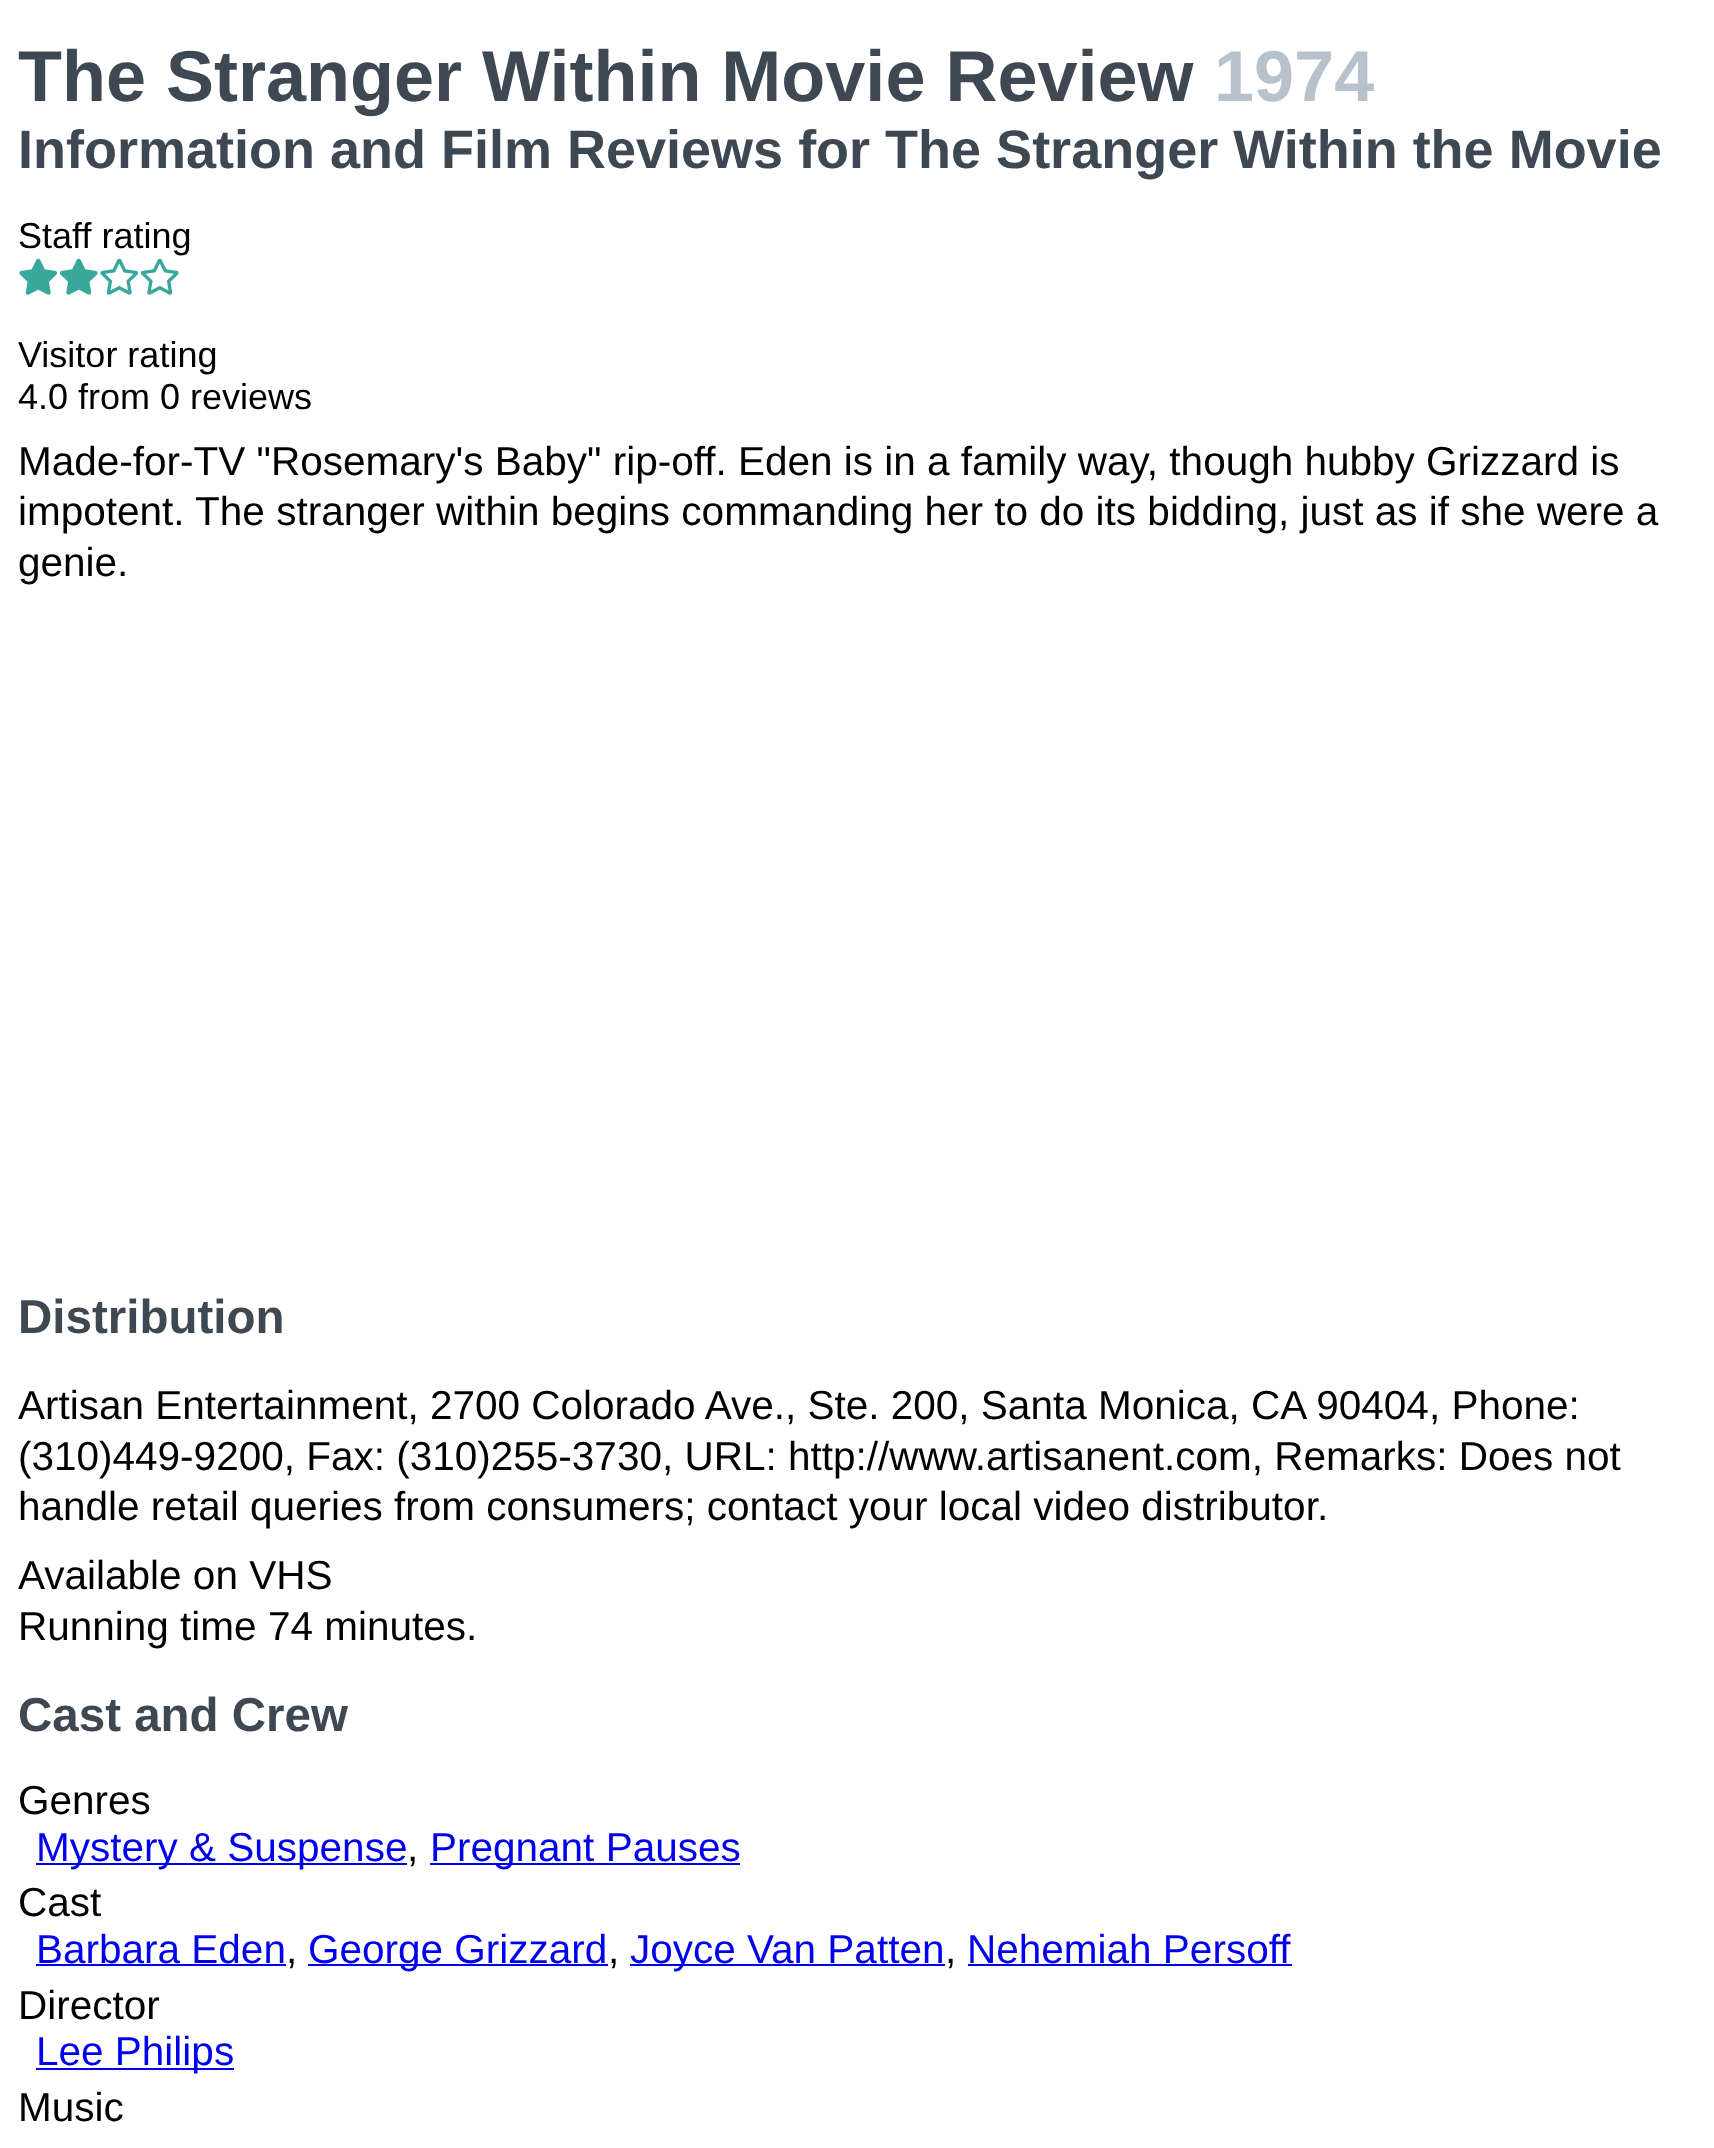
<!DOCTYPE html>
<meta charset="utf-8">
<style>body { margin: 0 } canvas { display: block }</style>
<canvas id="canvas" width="1714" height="2148"></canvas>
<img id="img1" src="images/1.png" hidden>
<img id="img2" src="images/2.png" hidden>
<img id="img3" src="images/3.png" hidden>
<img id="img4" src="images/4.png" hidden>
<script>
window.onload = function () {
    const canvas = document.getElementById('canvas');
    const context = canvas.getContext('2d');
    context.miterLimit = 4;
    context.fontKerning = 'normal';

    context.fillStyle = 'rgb(255, 255, 255)';
    context.fillRect(0, 0, 1714, 2148);
    context.drawImage(document.getElementById('img1'), 19, 258, 39, 37);
    context.drawImage(document.getElementById('img2'), 59, 258, 39, 37);
    context.drawImage(document.getElementById('img3'), 100, 258, 39, 37);
    context.drawImage(document.getElementById('img4'), 140, 258, 39, 37);
    context.fillStyle = 'rgb(0, 0, 238)';
    context.fillRect(36, 1863, 371, 2);
    context.fillRect(430, 1863, 310, 2);
    context.fillRect(36, 1964, 250, 2);
    context.fillRect(308, 1964, 300, 2);
    context.fillRect(630, 1964, 315, 2);
    context.fillRect(968, 1964, 324, 2);
    context.fillRect(36, 2068, 198, 2);
    context.font = 'bold 72px Liberation Sans';
    context.fillStyle = 'rgb(61, 72, 82)';
    context.fillText('The Stranger Within Movie Review', 18, 101);
    context.fillStyle = 'rgb(184, 194, 204)';
    context.fillText('1974', 1214, 101);
    context.font = 'bold 54px Liberation Sans';
    context.fillStyle = 'rgb(61, 72, 82)';
    context.fillText('Information and Film Reviews for The Stranger Within the Movie', 18, 168);
    context.font = '36px Liberation Sans';
    context.fillStyle = 'rgb(0, 0, 0)';
    context.fillText('Staff rating', 18, 248);
    context.fillText('Visitor rating', 18, 367);
    context.fillText('4.0 from 0 reviews', 18, 409);
    context.font = '40.5px Liberation Sans';
    context.fillText('Made-for-TV "Rosemary\'s Baby" rip-off. Eden is in a family way, though hubby Grizzard is', 18, 475);
    context.fillText('impotent. The stranger within begins commanding her to do its bidding, just as if she were a', 18, 525);
    context.fillText('genie.', 18, 576);
    context.font = 'bold 47.5px Liberation Sans';
    context.fillStyle = 'rgb(61, 72, 82)';
    context.fillText('Distribution', 18, 1333);
    context.font = '40.5px Liberation Sans';
    context.fillStyle = 'rgb(0, 0, 0)';
    context.fillText('Artisan Entertainment, 2700 Colorado Ave., Ste. 200, Santa Monica, CA 90404, Phone:', 18, 1419);
    context.fillText('(310)449-9200, Fax: (310)255-3730, URL: http://www.artisanent.com, Remarks: Does not', 18, 1470);
    context.fillText('handle retail queries from consumers; contact your local video distributor.', 18, 1520);
    context.fillText('Available on VHS', 18, 1589);
    context.fillText('Running time 74 minutes.', 18, 1640);
    context.font = 'bold 47.5px Liberation Sans';
    context.fillStyle = 'rgb(61, 72, 82)';
    context.fillText('Cast and Crew', 18, 1731);
    context.font = '40.5px Liberation Sans';
    context.fillStyle = 'rgb(0, 0, 0)';
    context.fillText('Genres', 18, 1814);
    context.fillStyle = 'rgb(0, 0, 238)';
    context.fillText('Mystery & Suspense', 36, 1861);
    context.fillStyle = 'rgb(0, 0, 0)';
    context.fillText(',', 407, 1861);
    context.fillStyle = 'rgb(0, 0, 238)';
    context.fillText('Pregnant Pauses', 430, 1861);
    context.fillStyle = 'rgb(0, 0, 0)';
    context.fillText('Cast', 18, 1916);
    context.fillStyle = 'rgb(0, 0, 238)';
    context.fillText('Barbara Eden', 36, 1963);
    context.fillStyle = 'rgb(0, 0, 0)';
    context.fillText(',', 286, 1963);
    context.fillStyle = 'rgb(0, 0, 238)';
    context.fillText('George Grizzard', 308, 1963);
    context.fillStyle = 'rgb(0, 0, 0)';
    context.fillText(',', 608, 1963);
    context.fillStyle = 'rgb(0, 0, 238)';
    context.fillText('Joyce Van Patten', 630, 1963);
    context.fillStyle = 'rgb(0, 0, 0)';
    context.fillText(',', 945, 1963);
    context.fillStyle = 'rgb(0, 0, 238)';
    context.fillText('Nehemiah Persoff', 967, 1963);
    context.fillStyle = 'rgb(0, 0, 0)';
    context.fillText('Director', 18, 2019);
    context.fillStyle = 'rgb(0, 0, 238)';
    context.fillText('Lee Philips', 36, 2065);
    context.fillStyle = 'rgb(0, 0, 0)';
    context.fillText('Music', 18, 2121);
};
</script>
